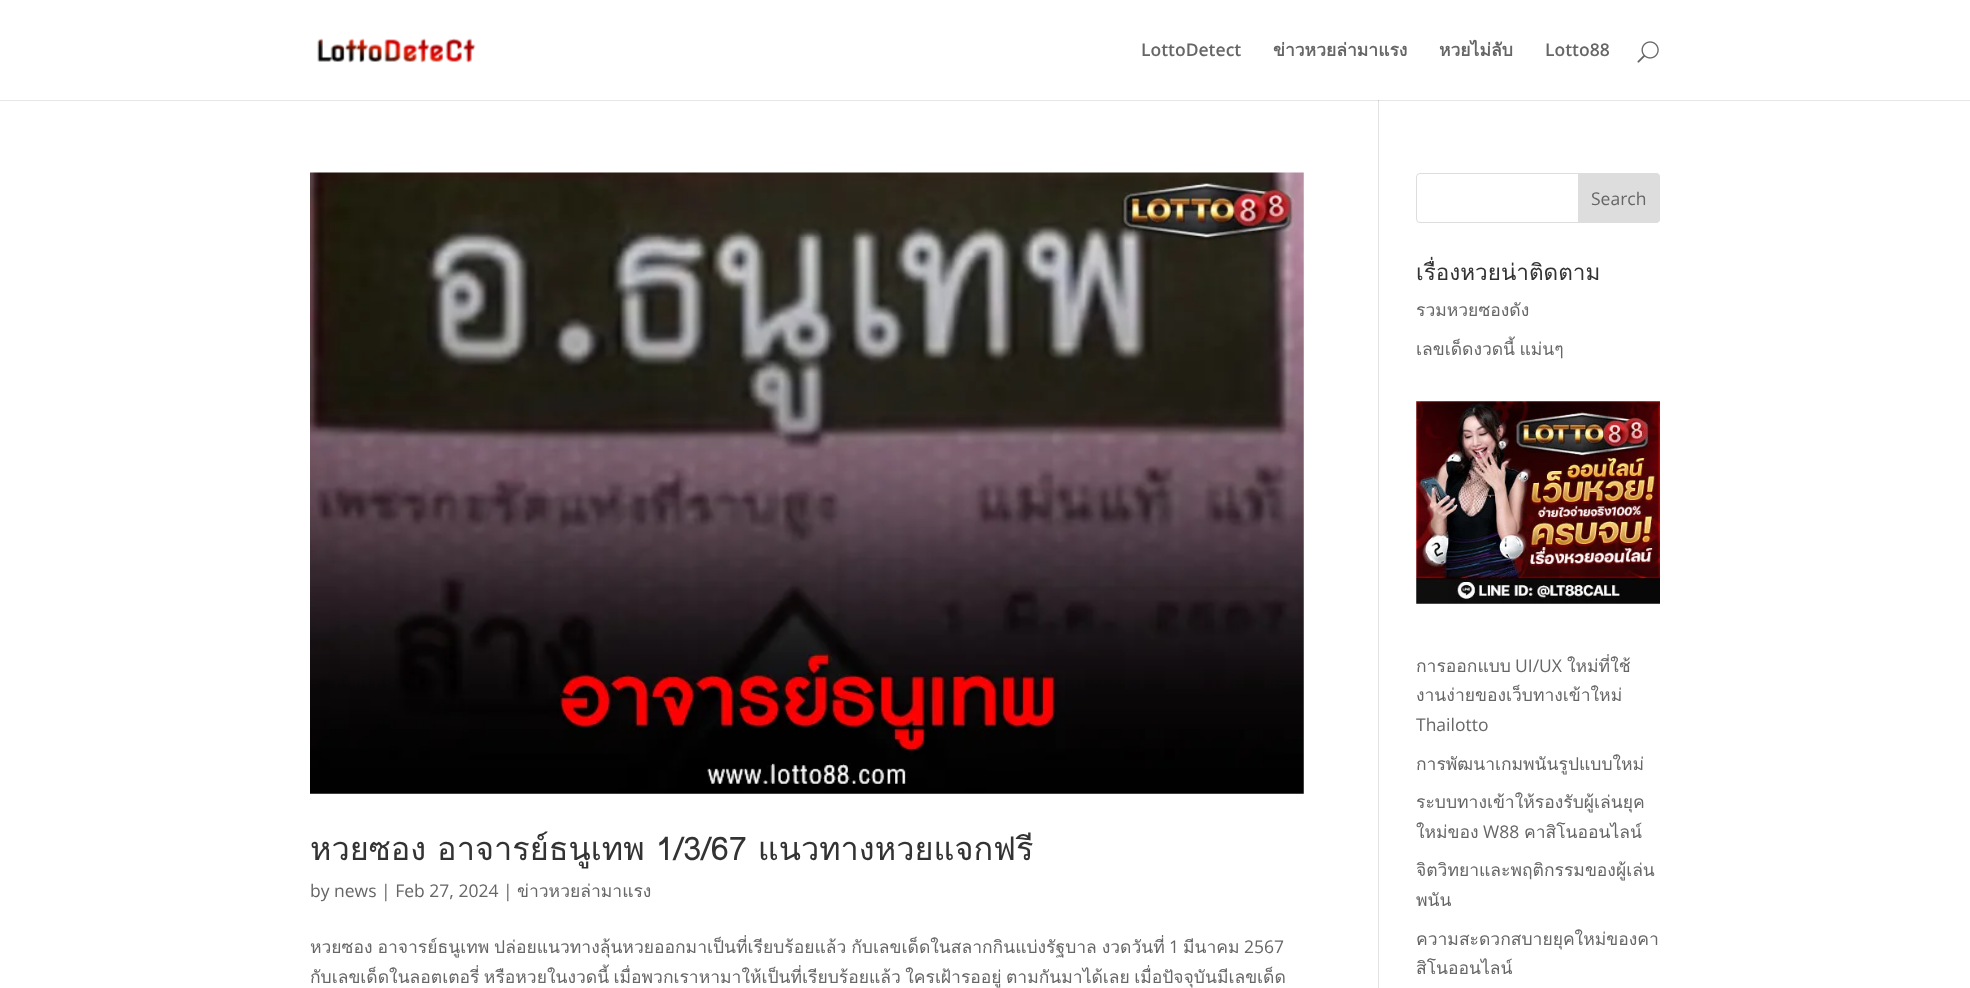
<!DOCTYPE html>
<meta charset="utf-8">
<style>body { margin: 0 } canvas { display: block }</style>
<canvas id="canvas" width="1970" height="988"></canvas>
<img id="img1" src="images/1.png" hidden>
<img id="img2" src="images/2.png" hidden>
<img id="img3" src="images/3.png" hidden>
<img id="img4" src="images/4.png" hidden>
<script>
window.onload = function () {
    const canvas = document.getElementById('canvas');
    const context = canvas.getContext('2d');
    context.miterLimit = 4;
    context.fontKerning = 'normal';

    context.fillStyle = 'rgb(255, 255, 255)';
    context.fillRect(0, 0, 1970, 988);
    context.fillStyle = 'rgb(230, 230, 230)';
    context.fillRect(0, 100, 1970, 1);
    context.drawImage(document.getElementById('img1'), 317, 38, 159, 25);
    context.drawImage(document.getElementById('img2'), 1637, 41, 22, 22);
    context.fillStyle = 'rgb(226, 226, 226)';
    context.fillRect(1378, 100, 1, 888);
    context.fillStyle = 'rgb(203, 203, 203)';
    context.fillRect(1378, 100, 1, 1);
    context.drawImage(document.getElementById('img3'), 310, 172, 994, 622);
    context.beginPath();
    context.roundRect(1416.5, 173.5, 243, 49, 3.5);
    context.strokeStyle = 'rgb(221, 221, 221)';
    context.stroke();
    context.fillStyle = 'rgb(221, 221, 221)';
    context.beginPath();
    context.roundRect(1578.5, 173.5, 81, 49, [0, 3.5, 3.5, 0]);
    context.fill();
    context.stroke();
    context.drawImage(document.getElementById('img4'), 1416, 401, 244, 203);
    context.font = '600 17.5px Open Sans';
    context.fillStyle = 'rgb(102, 102, 102)';
    context.fillText('LottoDetect', 1141, 56);
    context.font = 'bold 17.5px Loma';
    context.fillText('ข่าวหวยล่ามาแรง', 1273, 56);
    context.fillText('หวยไม่ลับ', 1439, 56);
    context.font = '600 17.5px Open Sans';
    context.fillText('Lotto88', 1545, 56);
    context.font = '32.5px Loma';
    context.fillStyle = 'rgb(51, 51, 51)';
    context.fillText('หวยซอง อาจารย์ธนูเทพ 1/3/67 แนวทางหวยแจกฟรี', 310, 860);
    context.font = '17.5px Open Sans';
    context.fillStyle = 'rgb(102, 102, 102)';
    context.fillText('by news | Feb 27, 2024 |', 310, 897);
    context.font = '17.5px Loma';
    context.fillText('ข่าวหวยล่ามาแรง', 517, 897);
    context.wordSpacing = '-1px';
    context.fillText('หวยซอง อาจารย์ธนูเทพ ปล่อยแนวทางลุ้นหวยออกมาเป็นที่เรียบร้อยแล้ว กับเลขเด็ดในสลากกินแบ่งรัฐบาล งวดวันที่', 310, 953);
    context.wordSpacing = '0px';
    context.font = '17.5px Open Sans';
    context.fillText('1', 1169, 953);
    context.font = '17.5px Loma';
    context.fillText('มีนาคม', 1183, 953);
    context.font = '17.5px Open Sans';
    context.fillText('2567', 1244, 953);
    context.wordSpacing = '-1.5px';
    context.font = '17.5px Loma';
    context.fillText('กับเลขเด็ดในลอตเตอรี่ หรือหวยในงวดนี้ เมื่อพวกเราหามาให้เป็นที่เรียบร้อยแล้ว ใครเฝ้ารออยู่ ตามกันมาได้เลย เมื่อปัจจุบันมีเลขเด็ด', 310, 983);
    context.wordSpacing = '0px';
    context.font = '17.5px Open Sans';
    context.fillText('Search', 1591, 205);
    context.font = '22.5px Loma';
    context.fillStyle = 'rgb(51, 51, 51)';
    context.fillText('เรื่องหวยน่าติดตาม', 1416, 280);
    context.font = '17.5px Loma';
    context.fillStyle = 'rgb(102, 102, 102)';
    context.fillText('รวมหวยซองดัง', 1416, 316);
    context.wordSpacing = '-1.5px';
    context.fillText('เลขเด็ดงวดนี้ แม่นๆ', 1416, 355);
    context.wordSpacing = '0px';
    context.fillText('การออกแบบ', 1416, 672);
    context.font = '17.5px Open Sans';
    context.fillText('UI/UX', 1515, 672);
    context.font = '17.5px Loma';
    context.fillText('ใหม่ที่ใช้', 1567, 672);
    context.fillText('งานง่ายของเว็บทางเข้าใหม่', 1416, 701);
    context.font = '17.5px Open Sans';
    context.fillText('Thailotto', 1416, 731);
    context.font = '17.5px Loma';
    context.fillText('การพัฒนาเกมพนันรูปแบบใหม่', 1416, 770);
    context.fillText('ระบบทางเข้าให้รองรับผู้เล่นยุค', 1416, 808);
    context.fillText('ใหม่ของ', 1416, 838);
    context.font = '17.5px Open Sans';
    context.fillText('W88', 1483, 838);
    context.font = '17.5px Loma';
    context.fillText('คาสิโนออนไลน์', 1524, 838);
    context.fillText('จิตวิทยาและพฤติกรรมของผู้เล่น', 1416, 876);
    context.fillText('พนัน', 1416, 906);
    context.fillText('ความสะดวกสบายยุคใหม่ของคา', 1416, 945);
    context.fillText('สิโนออนไลน์', 1416, 974);
};
</script>
